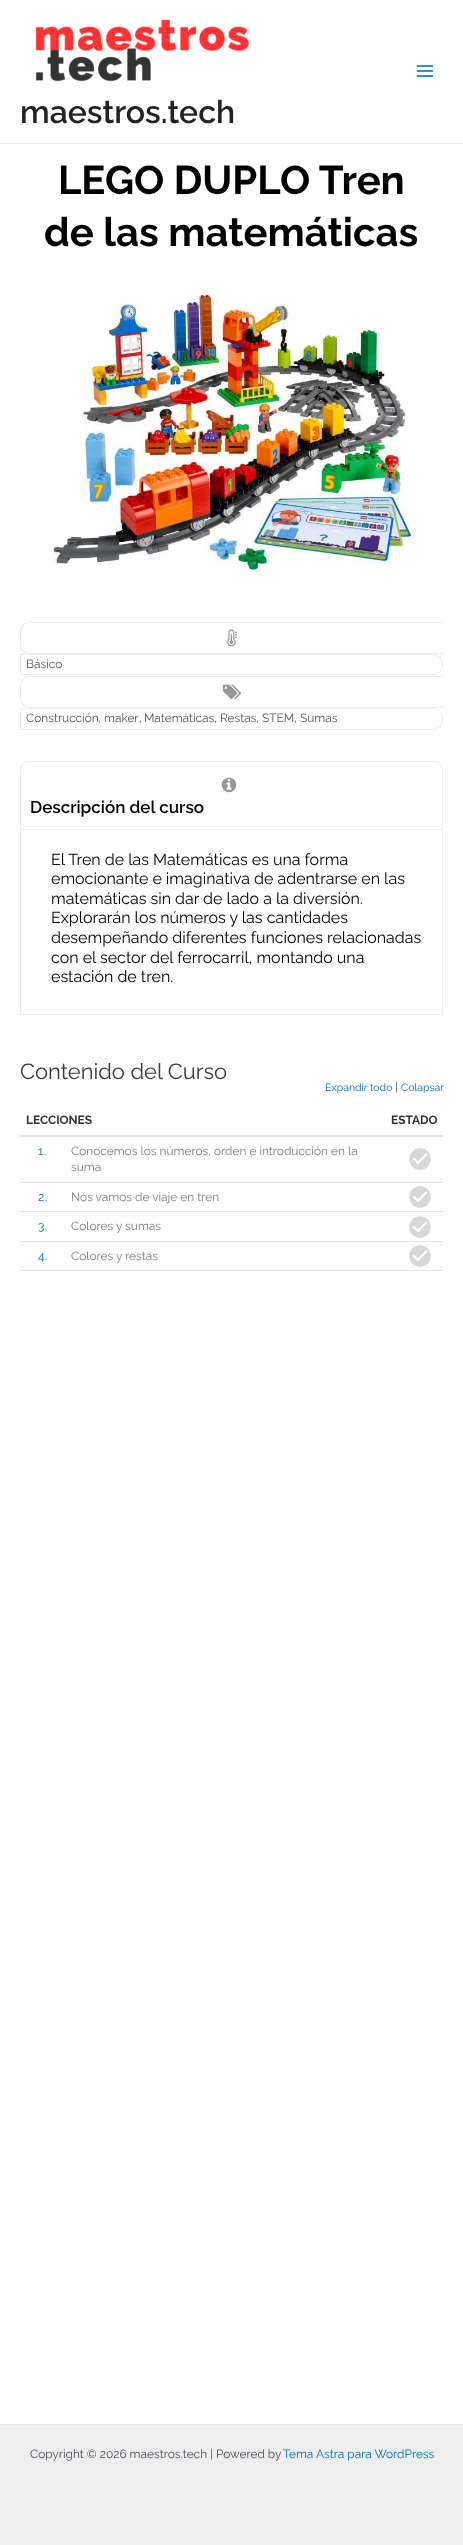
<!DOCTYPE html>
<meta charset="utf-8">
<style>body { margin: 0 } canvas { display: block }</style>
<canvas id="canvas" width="463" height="2545"></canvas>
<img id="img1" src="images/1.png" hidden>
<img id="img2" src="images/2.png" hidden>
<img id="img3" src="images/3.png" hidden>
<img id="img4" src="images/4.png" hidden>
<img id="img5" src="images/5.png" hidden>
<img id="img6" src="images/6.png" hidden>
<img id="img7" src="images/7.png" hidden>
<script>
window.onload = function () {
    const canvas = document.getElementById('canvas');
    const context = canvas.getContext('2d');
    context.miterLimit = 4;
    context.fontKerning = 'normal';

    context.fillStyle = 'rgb(255, 255, 255)';
    context.fillRect(0, 0, 463, 2545);
    context.fillStyle = 'rgb(234, 234, 234)';
    context.fillRect(0, 143, 463, 1);
    context.drawImage(document.getElementById('img1'), 416, 65, 18, 12);
    context.drawImage(document.getElementById('img2'), 35, 19, 214, 63);
    context.drawImage(document.getElementById('img3'), 53, 287, 364, 286);
    context.fillStyle = 'rgb(237, 237, 237)';
    context.beginPath();
    context.moveTo(30, 622);
    context.lineTo(443, 622);
    context.lineTo(443, 654);
    context.lineTo(30, 654);
    context.bezierCurveTo(24, 654, 20, 650, 20, 644);
    context.lineTo(20, 632);
    context.bezierCurveTo(20, 626, 24, 622, 30, 622);
    context.closePath();
    context.moveTo(30, 623);
    context.lineTo(443, 623);
    context.lineTo(443, 653);
    context.lineTo(30, 653);
    context.bezierCurveTo(25, 653, 21, 649, 21, 644);
    context.lineTo(21, 632);
    context.bezierCurveTo(21, 627, 25, 623, 30, 623);
    context.closePath();
    context.fill('evenodd');
    context.drawImage(document.getElementById('img4'), 227, 629, 10, 18);
    context.beginPath();
    context.roundRect(20.5, 654.5, 422, 20, [0, 9.5, 9.5, 0]);
    context.strokeStyle = 'rgb(237, 237, 237)';
    context.stroke();
    context.beginPath();
    context.moveTo(30, 676);
    context.lineTo(443, 676);
    context.lineTo(443, 708);
    context.lineTo(30, 708);
    context.bezierCurveTo(24, 708, 20, 704, 20, 698);
    context.lineTo(20, 686);
    context.bezierCurveTo(20, 680, 24, 676, 30, 676);
    context.closePath();
    context.moveTo(30, 677);
    context.lineTo(443, 677);
    context.lineTo(443, 707);
    context.lineTo(30, 707);
    context.bezierCurveTo(25, 707, 21, 703, 21, 698);
    context.lineTo(21, 686);
    context.bezierCurveTo(21, 681, 25, 677, 30, 677);
    context.closePath();
    context.fill('evenodd');
    context.drawImage(document.getElementById('img5'), 222, 684, 19, 15);
    context.beginPath();
    context.roundRect(20.5, 708.5, 422, 21, [0, 9.5, 9.5, 0]);
    context.stroke();
    context.beginPath();
    context.roundRect(20.5, 761.5, 422, 68, [7.5, 7.5, 0, 0]);
    context.stroke();
    context.drawImage(document.getElementById('img6'), 221, 777, 16, 16);
    context.fillRect(442, 831, 1, 184);
    context.fillRect(21, 1014, 422, 1);
    context.fillRect(20, 830, 1, 185);
    context.fillStyle = 'rgb(230, 230, 230)';
    context.fillRect(20, 1135, 423, 2);
    context.fillRect(20, 1182, 423, 1);
    context.drawImage(document.getElementById('img7'), 409, 1148, 22, 22);
    context.fillRect(20, 1211, 423, 1);
    context.drawImage(document.getElementById('img7'), 409, 1186, 22, 22);
    context.fillRect(20, 1241, 423, 1);
    context.drawImage(document.getElementById('img7'), 409, 1216, 22, 22);
    context.fillRect(20, 1270, 423, 1);
    context.drawImage(document.getElementById('img7'), 409, 1245, 22, 22);
    context.fillStyle = 'rgb(238, 238, 238)';
    context.fillRect(0, 2425, 463, 120);
    context.fillStyle = 'rgb(229, 229, 229)';
    context.fillRect(0, 2424, 463, 1);
    context.font = '600 32px Raleway';
    context.fillStyle = 'rgb(34, 34, 34)';
    context.fillText('maestros.tech', 20, 123);
    context.font = 'bold 40px Raleway';
    context.fillStyle = 'rgb(0, 0, 0)';
    context.fillText('LEGO DUPLO Tren', 58, 194);
    context.fillText('de las matemáticas', 44, 246);
    context.font = '11.9px Raleway';
    context.fillStyle = 'rgb(84, 89, 95)';
    context.fillText('Básico', 26, 668);
    context.fillText('Construcción', 26, 722);
    context.fillStyle = 'rgb(75, 79, 88)';
    context.fillText(',', 98, 722);
    context.fillStyle = 'rgb(84, 89, 95)';
    context.fillText('maker', 104, 722);
    context.fillStyle = 'rgb(75, 79, 88)';
    context.fillText(',', 139, 722);
    context.fillStyle = 'rgb(84, 89, 95)';
    context.fillText('Matemáticas', 144, 722);
    context.fillStyle = 'rgb(75, 79, 88)';
    context.fillText(',', 214, 722);
    context.fillStyle = 'rgb(84, 89, 95)';
    context.fillText('Restas', 220, 722);
    context.fillStyle = 'rgb(75, 79, 88)';
    context.fillText(',', 256, 722);
    context.fillStyle = 'rgb(84, 89, 95)';
    context.fillText('STEM', 262, 722);
    context.fillStyle = 'rgb(75, 79, 88)';
    context.fillText(',', 294, 722);
    context.fillStyle = 'rgb(84, 89, 95)';
    context.fillText('Sumas', 300, 722);
    context.font = '600 17px Raleway';
    context.fillStyle = 'rgb(0, 0, 0)';
    context.fillText('Descripción del curso', 30, 813);
    context.font = '16px Raleway';
    context.fillText('El Tren de las Matemáticas es una forma', 51, 865);
    context.fillText('emocionante e imaginativa de adentrarse en las', 51, 884);
    context.fillText('matemáticas sin dar de lado a la diversión.', 51, 904);
    context.fillText('Explorarán los números y las cantidades', 51, 923);
    context.fillText('desempeñando diferentes funciones relacionadas', 51, 943);
    context.fillText('con el sector del ferrocarril, montando una', 51, 963);
    context.fillText('estación de tren.', 51, 982);
    context.font = '21.9px Raleway';
    context.fillStyle = 'rgb(58, 58, 58)';
    context.fillText('Contenido del Curso', 20, 1079);
    context.font = '10.5px Raleway';
    context.fillStyle = 'rgb(1, 112, 185)';
    context.fillText('Expandir todo', 325, 1091);
    context.font = '11.9px Raleway';
    context.fillStyle = 'rgb(75, 79, 88)';
    context.fillText('|', 395, 1091);
    context.font = '10.5px Raleway';
    context.fillStyle = 'rgb(1, 112, 185)';
    context.fillText('Colapsar', 401, 1091);
    context.font = 'bold 11.9px Raleway';
    context.fillStyle = 'rgb(51, 51, 51)';
    context.fillText('LECCIONES', 26, 1124);
    context.fillText('ESTADO', 391, 1124);
    context.font = '11.9px Raleway';
    context.fillStyle = 'rgb(1, 112, 185)';
    context.fillText('1', 38, 1155);
    context.fillText('.', 44, 1155);
    context.fillStyle = 'rgb(128, 128, 128)';
    context.fillText('Conocemos los números, orden e introducción en la', 71, 1155);
    context.fillText('suma', 71, 1171);
    context.fillStyle = 'rgb(1, 112, 185)';
    context.fillText('2', 38, 1201);
    context.fillText('.', 45, 1201);
    context.fillStyle = 'rgb(128, 128, 128)';
    context.fillText('Nos vamos de viaje en tren', 71, 1201);
    context.fillStyle = 'rgb(1, 112, 185)';
    context.fillText('3', 38, 1230);
    context.fillText('.', 45, 1230);
    context.fillStyle = 'rgb(128, 128, 128)';
    context.fillText('Colores y sumas', 71, 1230);
    context.fillStyle = 'rgb(1, 112, 185)';
    context.fillText('4', 38, 1260);
    context.fillText('.', 45, 1260);
    context.fillStyle = 'rgb(128, 128, 128)';
    context.fillText('Colores y restas', 71, 1260);
    context.fillStyle = 'rgb(75, 79, 88)';
    context.fillText('Copyright © 2026 maestros.tech | Powered by', 30, 2458);
    context.fillStyle = 'rgb(1, 112, 185)';
    context.fillText('Tema Astra para WordPress', 283, 2458);
};
</script>
